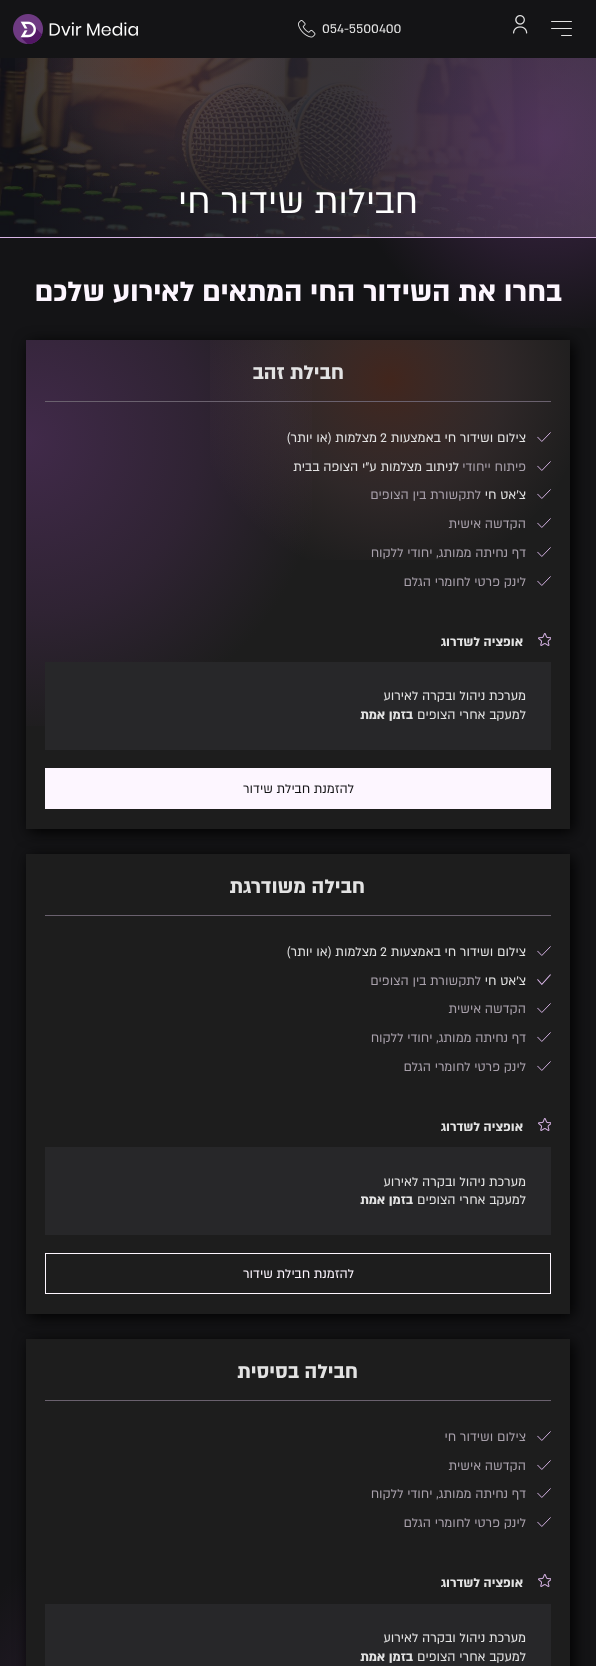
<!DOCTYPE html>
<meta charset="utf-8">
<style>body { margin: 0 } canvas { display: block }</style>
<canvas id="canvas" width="596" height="1666"></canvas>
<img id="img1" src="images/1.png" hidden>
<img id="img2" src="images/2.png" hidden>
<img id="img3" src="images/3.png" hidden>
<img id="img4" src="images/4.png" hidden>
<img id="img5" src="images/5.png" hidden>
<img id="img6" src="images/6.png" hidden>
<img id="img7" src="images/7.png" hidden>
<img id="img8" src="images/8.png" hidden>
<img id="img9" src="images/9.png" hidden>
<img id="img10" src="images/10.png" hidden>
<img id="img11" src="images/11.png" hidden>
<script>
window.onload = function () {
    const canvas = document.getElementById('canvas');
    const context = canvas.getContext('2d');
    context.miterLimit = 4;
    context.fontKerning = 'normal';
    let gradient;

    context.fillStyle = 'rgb(20, 20, 22)';
    context.fillRect(0, 0, 596, 1666);
    context.drawImage(document.getElementById('img1'), 551, 21, 21, 15);
    context.drawImage(document.getElementById('img2'), 513, 15, 15, 19);
    context.drawImage(document.getElementById('img3'), 298, 20, 18, 18);
    context.drawImage(document.getElementById('img4'), 13, 14, 125, 30);
    context.drawImage(document.getElementById('img5'), 0, 58, 592, 179);
    gradient = context.createLinearGradient(596, 148, 0, 148);
    gradient.addColorStop(0, 'rgb(58, 51, 61)');
    gradient.addColorStop(1, 'rgba(58, 51, 61, 0)');
    context.fillStyle = gradient;
    context.fillRect(34, 58, 562, 179);
    context.fillStyle = 'rgb(29, 29, 29)';
    context.fillRect(26, 340, 544, 489);
    context.save();
    context.beginPath();
    context.moveTo(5, 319);
    context.lineTo(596, 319);
    context.lineTo(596, 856);
    context.lineTo(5, 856);
    context.closePath();
    context.moveTo(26, 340);
    context.lineTo(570, 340);
    context.lineTo(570, 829);
    context.lineTo(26, 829);
    context.closePath();
    context.clip('evenodd');
    context.fillStyle = 'rgb(0, 0, 0)';
    context.filter = 'blur(7.5px)';
    context.beginPath();
    context.rect(29, 343, 544, 489);
    context.fill();
    context.filter = 'none';
    context.restore();
    gradient = context.createRadialGradient(546, 138, 0, 546, 138, 200);
    gradient.addColorStop(0, 'rgba(110, 58, 130, 0.45)');
    gradient.addColorStop(0.58, 'rgba(110, 58, 130, 0.22)');
    gradient.addColorStop(1, 'rgba(110, 58, 130, 0)');
    context.fillStyle = gradient;
    context.fillRect(356, 58, 240, 270);
    context.fillStyle = 'rgb(215, 180, 229)';
    context.fillRect(0, 237, 596, 1);
    gradient = context.createRadialGradient(150, 58, 0, 150, 58, 150);
    gradient.addColorStop(0, 'rgba(212, 72, 28, 0.2)');
    gradient.addColorStop(0.58, 'rgba(221, 145, 152, 0.09)');
    gradient.addColorStop(1, 'rgba(221, 145, 152, 0)');
    context.fillStyle = gradient;
    context.fillRect(15, 58, 270, 135);
    gradient = context.createRadialGradient(26, 440, 0, 26, 440, 300);
    gradient.addColorStop(0, 'rgb(65, 42, 74)');
    gradient.addColorStop(0.58, 'rgb(47, 35, 51)');
    gradient.addColorStop(1, 'rgb(29, 29, 29)');
    context.fillStyle = gradient;
    context.fillRect(26, 340, 286, 386);
    gradient = context.createRadialGradient(390, 380, 0, 390, 380, 200);
    gradient.addColorStop(0, 'rgba(212, 72, 28, 0.2)');
    gradient.addColorStop(0.58, 'rgba(221, 145, 152, 0.09)');
    gradient.addColorStop(1, 'rgba(221, 145, 152, 0)');
    context.fillStyle = gradient;
    context.fillRect(210, 340, 360, 220);
    context.fillStyle = 'rgb(106, 97, 110)';
    context.fillRect(45, 401, 506, 1);
    context.drawImage(document.getElementById('img6'), 537, 432, 14, 10);
    context.drawImage(document.getElementById('img7'), 537, 461, 14, 10);
    context.drawImage(document.getElementById('img8'), 537, 489, 14, 10);
    context.drawImage(document.getElementById('img9'), 537, 518, 14, 10);
    context.drawImage(document.getElementById('img9'), 537, 547, 14, 10);
    context.drawImage(document.getElementById('img9'), 537, 576, 14, 10);
    context.drawImage(document.getElementById('img10'), 538, 633, 13, 13);
    context.fillStyle = 'rgb(39, 39, 41)';
    context.fillRect(45, 662, 506, 88);
    context.fillStyle = 'rgb(253, 246, 255)';
    context.fillRect(45, 768, 506, 41);
    context.fillStyle = 'rgb(0, 0, 0)';
    context.filter = 'blur(7.5px)';
    context.beginPath();
    context.rect(29, 857, 544, 460);
    context.fill();
    context.filter = 'none';
    context.fillStyle = 'rgb(29, 29, 29)';
    context.fillRect(26, 854, 544, 460);
    context.fillStyle = 'rgb(106, 97, 110)';
    context.fillRect(45, 915, 506, 1);
    context.drawImage(document.getElementById('img9'), 537, 946, 14, 10);
    context.drawImage(document.getElementById('img11'), 537, 974, 14, 11);
    context.drawImage(document.getElementById('img9'), 537, 1003, 14, 10);
    context.drawImage(document.getElementById('img9'), 537, 1032, 14, 10);
    context.drawImage(document.getElementById('img9'), 537, 1061, 14, 10);
    context.drawImage(document.getElementById('img10'), 538, 1118, 13, 13);
    context.fillStyle = 'rgb(39, 39, 41)';
    context.fillRect(45, 1147, 506, 88);
    context.strokeStyle = 'rgb(253, 246, 255)';
    context.strokeRect(45.5, 1253.5, 505, 40);
    gradient = context.createRadialGradient(250, 1835, 0, 250, 1835, 350);
    gradient.addColorStop(0, 'rgb(61, 37, 71)');
    gradient.addColorStop(0.58, 'rgb(40, 28, 46)');
    gradient.addColorStop(1, 'rgb(20, 20, 22)');
    context.fillStyle = gradient;
    context.fillRect(0, 1500, 539, 166);
    context.fillStyle = 'rgb(0, 0, 0)';
    context.filter = 'blur(7.5px)';
    context.beginPath();
    context.rect(29, 1342, 544, 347);
    context.fill();
    context.filter = 'none';
    context.fillStyle = 'rgb(29, 29, 29)';
    context.fillRect(26, 1339, 544, 327);
    context.fillStyle = 'rgb(106, 97, 110)';
    context.fillRect(45, 1400, 506, 1);
    context.drawImage(document.getElementById('img9'), 537, 1431, 14, 10);
    context.drawImage(document.getElementById('img9'), 537, 1460, 14, 10);
    context.drawImage(document.getElementById('img9'), 537, 1488, 14, 10);
    context.drawImage(document.getElementById('img9'), 537, 1517, 14, 10);
    context.drawImage(document.getElementById('img10'), 538, 1574, 13, 13);
    context.fillStyle = 'rgb(39, 39, 41)';
    context.fillRect(45, 1604, 506, 62);
    context.font = '14.4px "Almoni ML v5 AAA"';
    context.fillStyle = 'rgb(227, 227, 227)';
    context.fillText('054-5500400', 322, 33);
    context.direction = 'rtl';
    context.font = '40px "Almoni ML v5 AAA"';
    context.fillStyle = 'rgb(255, 255, 255)';
    context.fillText('חבילות שידור חי', 418, 213);
    context.font = 'bold 32px "Almoni ML v5 AAA"';
    context.fillStyle = 'rgb(253, 246, 255)';
    context.fillText('בחרו את השידור החי המתאים לאירוע שלכם', 562, 301);
    context.font = 'bold 22.5px "Almoni ML v5 AAA"';
    context.fillStyle = 'rgb(227, 227, 227)';
    context.fillText('חבילת זהב', 344, 379);
    context.font = '14.4px "Almoni ML v5 AAA"';
    context.fillText('צילום ושידור חי באמצעות', 526, 442);
    context.direction = 'ltr';
    context.fillText('2', 380, 442);
    context.direction = 'rtl';
    context.fillText('מצלמות (או יותר)', 377, 442);
    context.fillStyle = 'rgb(168, 160, 171)';
    context.fillText('פיתוח ייחודי', 526, 471);
    context.fillStyle = 'rgb(227, 227, 227)';
    context.fillText('לניתוב מצלמות ע"י הצופה בבית', 459, 471);
    context.fillText('צ\'אט חי', 526, 499);
    context.fillStyle = 'rgb(168, 160, 171)';
    context.fillText('לתקשורת בין הצופים', 481, 499);
    context.fillText('הקדשה אישית', 526, 528);
    context.fillText('דף נחיתה ממותג, יחודי ללקוח', 526, 557);
    context.fillText('לינק פרטי לחומרי הגלם', 526, 586);
    context.font = 'bold 14.4px "Almoni ML v5 AAA"';
    context.fillStyle = 'rgb(227, 227, 227)';
    context.fillText('אופציה לשדרוג', 523, 646);
    context.font = '14.4px "Almoni ML v5 AAA"';
    context.fillText('מערכת ניהול ובקרה לאירוע', 526, 700);
    context.fillText('למעקב אחרי הצופים', 526, 719);
    context.font = 'bold 14.4px "Almoni ML v5 AAA"';
    context.fillText('בזמן אמת', 413, 719);
    context.font = '14.4px "Almoni ML v5 AAA"';
    context.fillStyle = 'rgb(20, 20, 22)';
    context.fillText('להזמנת חבילת שידור', 354, 793);
    context.font = 'bold 22.5px "Almoni ML v5 AAA"';
    context.fillStyle = 'rgb(227, 227, 227)';
    context.fillText('חבילה משודרגת', 365, 893);
    context.font = '14.4px "Almoni ML v5 AAA"';
    context.fillText('צילום ושידור חי באמצעות', 526, 956);
    context.direction = 'ltr';
    context.fillText('2', 380, 956);
    context.direction = 'rtl';
    context.fillText('מצלמות (או יותר)', 377, 956);
    context.fillText('צ\'אט חי', 526, 985);
    context.fillStyle = 'rgb(168, 160, 171)';
    context.fillText('לתקשורת בין הצופים', 481, 985);
    context.fillText('הקדשה אישית', 526, 1013);
    context.fillText('דף נחיתה ממותג, יחודי ללקוח', 526, 1042);
    context.fillText('לינק פרטי לחומרי הגלם', 526, 1071);
    context.font = 'bold 14.4px "Almoni ML v5 AAA"';
    context.fillStyle = 'rgb(227, 227, 227)';
    context.fillText('אופציה לשדרוג', 523, 1131);
    context.font = '14.4px "Almoni ML v5 AAA"';
    context.fillText('מערכת ניהול ובקרה לאירוע', 526, 1186);
    context.fillText('למעקב אחרי הצופים', 526, 1204);
    context.font = 'bold 14.4px "Almoni ML v5 AAA"';
    context.fillText('בזמן אמת', 413, 1204);
    context.font = '14.4px "Almoni ML v5 AAA"';
    context.fillStyle = 'rgb(253, 246, 255)';
    context.fillText('להזמנת חבילת שידור', 354, 1278);
    context.font = 'bold 22.5px "Almoni ML v5 AAA"';
    context.fillStyle = 'rgb(227, 227, 227)';
    context.fillText('חבילה בסיסית', 358, 1378);
    context.font = '14.4px "Almoni ML v5 AAA"';
    context.fillStyle = 'rgb(168, 160, 171)';
    context.fillText('צילום ושידור חי', 526, 1441);
    context.fillText('הקדשה אישית', 526, 1470);
    context.fillText('דף נחיתה ממותג, יחודי ללקוח', 526, 1498);
    context.fillText('לינק פרטי לחומרי הגלם', 526, 1527);
    context.font = 'bold 14.4px "Almoni ML v5 AAA"';
    context.fillStyle = 'rgb(227, 227, 227)';
    context.fillText('אופציה לשדרוג', 523, 1587);
    context.font = '14.4px "Almoni ML v5 AAA"';
    context.fillText('מערכת ניהול ובקרה לאירוע', 526, 1642);
    context.fillText('למעקב אחרי הצופים', 526, 1661);
    context.font = 'bold 14.4px "Almoni ML v5 AAA"';
    context.fillText('בזמן אמת', 413, 1661);
};
</script>
